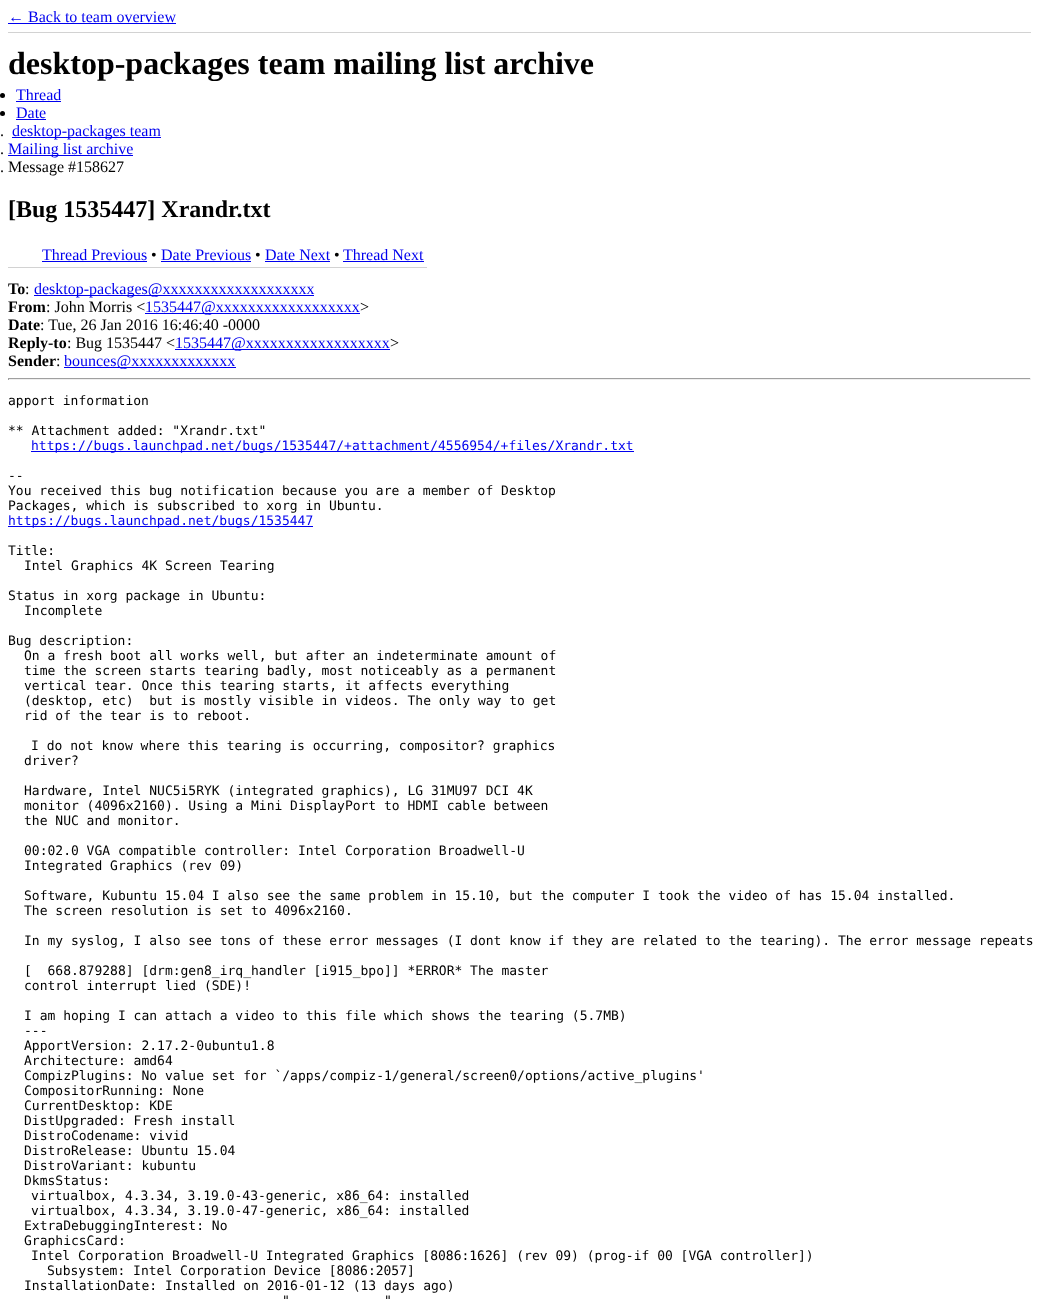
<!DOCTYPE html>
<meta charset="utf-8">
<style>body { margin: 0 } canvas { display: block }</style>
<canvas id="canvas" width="1039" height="1299"></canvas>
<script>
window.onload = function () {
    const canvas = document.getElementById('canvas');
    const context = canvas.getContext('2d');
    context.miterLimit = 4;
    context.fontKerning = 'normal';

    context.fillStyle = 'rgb(255, 255, 255)';
    context.fillRect(0, 0, 1039, 1299);
    context.fillStyle = 'rgb(210, 210, 210)';
    context.fillRect(8, 32, 1023, 1);
    context.fillStyle = 'rgb(0, 0, 238)';
    context.fillRect(8, 23, 168, 1);
    context.fillStyle = 'rgb(0, 0, 0)';
    context.beginPath();
    context.arc(2.5, 95.5, 2.5, 0, 2 * Math.PI);
    context.fill();
    context.fillStyle = 'rgb(0, 0, 238)';
    context.fillRect(16, 101, 45, 1);
    context.fillStyle = 'rgb(0, 0, 0)';
    context.beginPath();
    context.arc(2.5, 113.5, 2.5, 0, 2 * Math.PI);
    context.fill();
    context.fillStyle = 'rgb(0, 0, 238)';
    context.fillRect(16, 119, 30, 1);
    context.fillRect(12, 137, 149, 1);
    context.fillRect(8, 155, 125, 1);
    context.fillStyle = 'rgb(210, 210, 210)';
    context.fillRect(8, 267, 419, 1);
    context.fillStyle = 'rgb(0, 0, 238)';
    context.fillRect(42, 261, 105, 1);
    context.fillRect(161, 261, 90, 1);
    context.fillRect(265, 261, 65, 1);
    context.fillRect(343, 261, 81, 1);
    context.fillRect(34, 295, 280, 1);
    context.fillRect(145, 313, 215, 1);
    context.fillRect(175, 349, 215, 1);
    context.fillRect(64, 367, 172, 1);
    context.fillStyle = 'rgb(159, 159, 159)';
    context.fillRect(8, 378, 1023, 1);
    context.fillStyle = 'rgb(238, 238, 238)';
    context.fillRect(1030, 378, 1, 2);
    context.fillRect(8, 379, 1023, 1);
    context.fillStyle = 'rgb(159, 159, 159)';
    context.fillRect(8, 378, 1, 2);
    context.fillStyle = 'rgb(0, 0, 238)';
    context.fillRect(31, 451, 603, 1);
    context.fillRect(8, 526, 305, 1);
    context.font = '16px Liberation Serif';
    context.fillText('← Back to team overview', 8, 22);
    context.font = 'bold 32px Liberation Serif';
    context.fillStyle = 'rgb(0, 0, 0)';
    context.fillText('desktop-packages team mailing list archive', 8, 74);
    context.font = '16px Liberation Serif';
    context.fillStyle = 'rgb(0, 0, 238)';
    context.fillText('Thread', 16, 100);
    context.fillText('Date', 16, 118);
    context.fillStyle = 'rgb(0, 0, 0)';
    context.fillText('.', 0, 136);
    context.fillStyle = 'rgb(0, 0, 238)';
    context.fillText('desktop-packages team', 12, 136);
    context.fillStyle = 'rgb(0, 0, 0)';
    context.fillText('.', 0, 154);
    context.fillStyle = 'rgb(0, 0, 238)';
    context.fillText('Mailing list archive', 8, 154);
    context.fillStyle = 'rgb(0, 0, 0)';
    context.fillText('. Message #158627', 0, 172);
    context.font = 'bold 24px Liberation Serif';
    context.fillText('[Bug 1535447] Xrandr.txt', 8, 217);
    context.font = '16px Liberation Serif';
    context.fillStyle = 'rgb(0, 0, 238)';
    context.fillText('Thread Previous', 42, 260);
    context.fillStyle = 'rgb(0, 0, 0)';
    context.fillText('•', 151, 260);
    context.fillStyle = 'rgb(0, 0, 238)';
    context.fillText('Date Previous', 161, 260);
    context.fillStyle = 'rgb(0, 0, 0)';
    context.fillText('•', 255, 260);
    context.fillStyle = 'rgb(0, 0, 238)';
    context.fillText('Date Next', 265, 260);
    context.fillStyle = 'rgb(0, 0, 0)';
    context.fillText('•', 334, 260);
    context.fillStyle = 'rgb(0, 0, 238)';
    context.fillText('Thread Next', 343, 260);
    context.font = 'bold 16px Liberation Serif';
    context.fillStyle = 'rgb(0, 0, 0)';
    context.fillText('To', 8, 294);
    context.font = '16px Liberation Serif';
    context.fillText(':', 25, 294);
    context.fillStyle = 'rgb(0, 0, 238)';
    context.fillText('desktop-packages@xxxxxxxxxxxxxxxxxxx', 34, 294);
    context.font = 'bold 16px Liberation Serif';
    context.fillStyle = 'rgb(0, 0, 0)';
    context.fillText('From', 8, 312);
    context.font = '16px Liberation Serif';
    context.fillText(': John Morris <', 46, 312);
    context.fillStyle = 'rgb(0, 0, 238)';
    context.fillText('1535447@xxxxxxxxxxxxxxxxxx', 145, 312);
    context.fillStyle = 'rgb(0, 0, 0)';
    context.fillText('>', 360, 312);
    context.font = 'bold 16px Liberation Serif';
    context.fillText('Date', 8, 330);
    context.font = '16px Liberation Serif';
    context.fillText(': Tue, 26 Jan 2016 16:46:40 -0000', 40, 330);
    context.font = 'bold 16px Liberation Serif';
    context.fillText('Reply-to', 8, 348);
    context.font = '16px Liberation Serif';
    context.fillText(': Bug 1535447 <', 67, 348);
    context.fillStyle = 'rgb(0, 0, 238)';
    context.fillText('1535447@xxxxxxxxxxxxxxxxxx', 175, 348);
    context.fillStyle = 'rgb(0, 0, 0)';
    context.fillText('>', 390, 348);
    context.font = 'bold 16px Liberation Serif';
    context.fillText('Sender', 8, 366);
    context.font = '16px Liberation Serif';
    context.fillText(':', 56, 366);
    context.fillStyle = 'rgb(0, 0, 238)';
    context.fillText('bounces@xxxxxxxxxxxxx', 64, 366);
    context.font = '13px DejaVu Sans Mono';
    context.fillStyle = 'rgb(0, 0, 0)';
    context.fillText('apport information', 8, 405);
    context.fillText('** Attachment added: "Xrandr.txt"', 8, 435);
    context.fillStyle = 'rgb(0, 0, 238)';
    context.fillText('https://bugs.launchpad.net/bugs/1535447/+attachment/4556954/+files/Xrandr.txt', 31, 450);
    context.fillStyle = 'rgb(0, 0, 0)';
    context.fillText('--', 8, 480);
    context.fillText('You received this bug notification because you are a member of Desktop', 8, 495);
    context.fillText('Packages, which is subscribed to xorg in Ubuntu.', 8, 510);
    context.fillStyle = 'rgb(0, 0, 238)';
    context.fillText('https://bugs.launchpad.net/bugs/1535447', 8, 525);
    context.fillStyle = 'rgb(0, 0, 0)';
    context.fillText('Title:', 8, 555);
    context.fillText('Intel Graphics 4K Screen Tearing', 24, 570);
    context.fillText('Status in xorg package in Ubuntu:', 8, 600);
    context.fillText('Incomplete', 24, 615);
    context.fillText('Bug description:', 8, 645);
    context.fillText('On a fresh boot all works well, but after an indeterminate amount of', 24, 660);
    context.fillText('time the screen starts tearing badly, most noticeably as a permanent', 24, 675);
    context.fillText('vertical tear. Once this tearing starts, it affects everything', 24, 690);
    context.fillText('(desktop, etc)  but is mostly visible in videos. The only way to get', 24, 705);
    context.fillText('rid of the tear is to reboot.', 24, 720);
    context.fillText('I do not know where this tearing is occurring, compositor? graphics', 31, 750);
    context.fillText('driver?', 24, 765);
    context.fillText('Hardware, Intel NUC5i5RYK (integrated graphics), LG 31MU97 DCI 4K', 24, 795);
    context.fillText('monitor (4096x2160). Using a Mini DisplayPort to HDMI cable between', 24, 810);
    context.fillText('the NUC and monitor.', 24, 825);
    context.fillText('00:02.0 VGA compatible controller: Intel Corporation Broadwell-U', 24, 855);
    context.fillText('Integrated Graphics (rev 09)', 24, 870);
    context.fillText('Software, Kubuntu 15.04 I also see the same problem in 15.10, but the computer I took the video of has 15.04 installed.', 24, 900);
    context.fillText('The screen resolution is set to 4096x2160.', 24, 915);
    context.fillText('In my syslog, I also see tons of these error messages (I dont know if they are related to the tearing). The error message repeats', 24, 945);
    context.fillText('[  668.879288] [drm:gen8_irq_handler [i915_bpo]] *ERROR* The master', 24, 975);
    context.fillText('control interrupt lied (SDE)!', 24, 990);
    context.fillText('I am hoping I can attach a video to this file which shows the tearing (5.7MB)', 24, 1020);
    context.fillText('---', 24, 1035);
    context.fillText('ApportVersion: 2.17.2-0ubuntu1.8', 24, 1050);
    context.fillText('Architecture: amd64', 24, 1065);
    context.fillText('CompizPlugins: No value set for `/apps/compiz-1/general/screen0/options/active_plugins\'', 24, 1080);
    context.fillText('CompositorRunning: None', 24, 1095);
    context.fillText('CurrentDesktop: KDE', 24, 1110);
    context.fillText('DistUpgraded: Fresh install', 24, 1125);
    context.fillText('DistroCodename: vivid', 24, 1140);
    context.fillText('DistroRelease: Ubuntu 15.04', 24, 1155);
    context.fillText('DistroVariant: kubuntu', 24, 1170);
    context.fillText('DkmsStatus:', 24, 1185);
    context.fillText('virtualbox, 4.3.34, 3.19.0-43-generic, x86_64: installed', 31, 1200);
    context.fillText('virtualbox, 4.3.34, 3.19.0-47-generic, x86_64: installed', 31, 1215);
    context.fillText('ExtraDebuggingInterest: No', 24, 1230);
    context.fillText('GraphicsCard:', 24, 1245);
    context.fillText('Intel Corporation Broadwell-U Integrated Graphics [8086:1626] (rev 09) (prog-if 00 [VGA controller])', 31, 1260);
    context.fillText('Subsystem: Intel Corporation Device [8086:2057]', 47, 1275);
    context.fillText('InstallationDate: Installed on 2016-01-12 (13 days ago)', 24, 1290);
    context.fillText('"', 282, 1305);
    context.fillText('"', 384, 1305);
};
</script>
